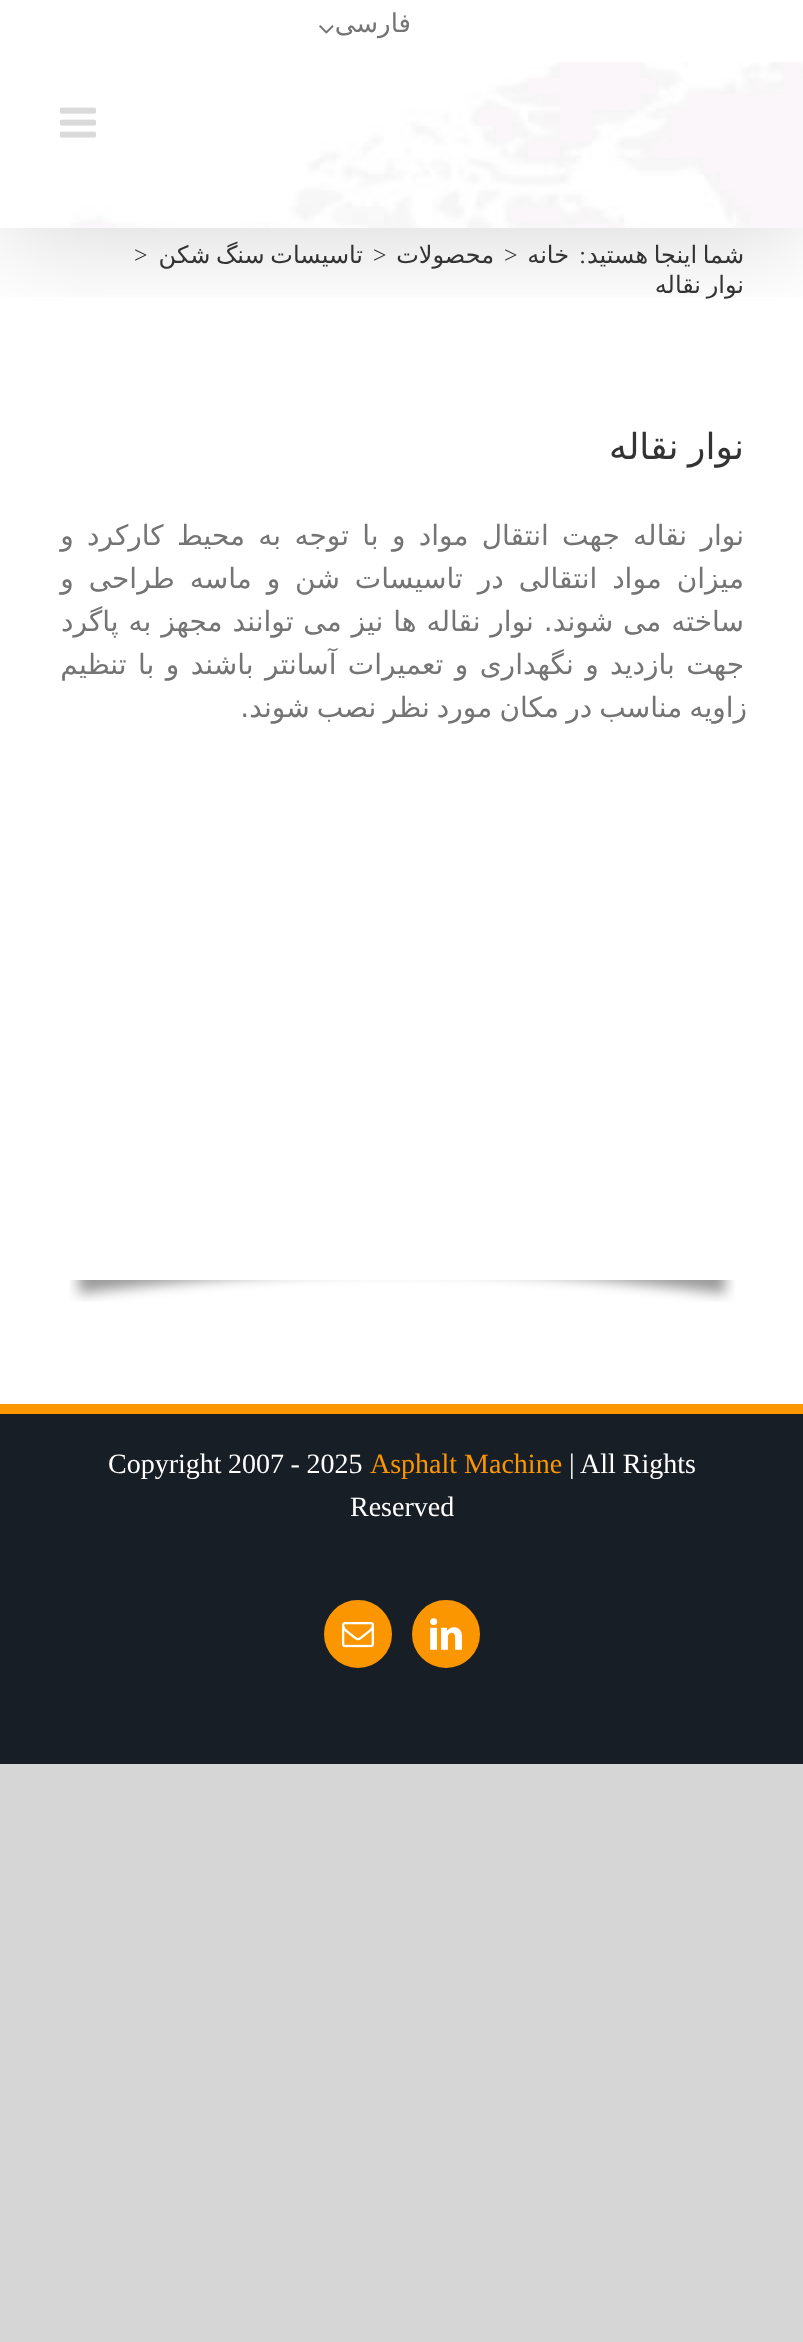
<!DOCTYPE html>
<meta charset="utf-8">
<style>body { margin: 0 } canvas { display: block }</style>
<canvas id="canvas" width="803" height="2342"></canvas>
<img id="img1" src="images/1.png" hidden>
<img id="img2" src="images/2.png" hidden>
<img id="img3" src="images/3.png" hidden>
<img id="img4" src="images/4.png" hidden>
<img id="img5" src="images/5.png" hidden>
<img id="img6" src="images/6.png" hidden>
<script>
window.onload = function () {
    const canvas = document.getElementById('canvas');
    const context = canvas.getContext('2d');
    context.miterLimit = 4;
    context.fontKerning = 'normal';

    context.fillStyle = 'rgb(215, 214, 214)';
    context.fillRect(0, 0, 803, 2342);
    context.fillStyle = 'rgb(255, 255, 255)';
    context.fillRect(0, 0, 803, 1404);
    context.save();
    context.beginPath();
    context.rect(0, 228, 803, 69);
    context.clip();
    context.fillStyle = 'rgba(0, 0, 0, 0.14)';
    context.filter = 'blur(50px)';
    context.beginPath();
    context.rect(4, 24, 796, 220);
    context.fill();
    context.filter = 'none';
    context.restore();
    context.drawImage(document.getElementById('img1'), 319, 25, 15, 9);
    context.drawImage(document.getElementById('img2'), 69, 62, 734, 166);
    context.drawImage(document.getElementById('img3'), 60, 107, 36, 31);
    context.drawImage(document.getElementById('img4'), 69, 1280, 666, 22);
    context.fillStyle = 'rgb(24, 30, 38)';
    context.fillRect(0, 1414, 803, 350);
    context.fillStyle = 'rgb(251, 150, 1)';
    context.fillRect(0, 1404, 803, 10);
    context.beginPath();
    context.arc(446, 1634, 33, 0, 2 * Math.PI);
    context.fill();
    context.strokeStyle = 'rgb(251, 150, 1)';
    context.lineWidth = 2;
    context.stroke();
    context.drawImage(document.getElementById('img5'), 430, 1618, 32, 32);
    context.beginPath();
    context.arc(358, 1634, 33, 0, 2 * Math.PI);
    context.fill();
    context.stroke();
    context.drawImage(document.getElementById('img6'), 342, 1622, 32, 26);
    context.direction = 'rtl';
    context.font = '26px DejaVu Sans';
    context.fillStyle = 'rgb(116, 116, 116)';
    context.fillText('فارسی', 411, 32);
    context.wordSpacing = '-2px';
    context.font = '24px DejaVu Sans';
    context.fillStyle = 'rgb(51, 51, 51)';
    context.fillText('شما اینجا هستید', 744, 263);
    context.wordSpacing = '0px';
    context.font = '24px Liberation Serif';
    context.fillText(':', 586, 263);
    context.font = '24px DejaVu Sans';
    context.fillText('خانه', 569, 263);
    context.direction = 'ltr';
    context.font = '24px Liberation Serif';
    context.fillText('>', 504, 263);
    context.direction = 'rtl';
    context.font = '24px DejaVu Sans';
    context.fillText('محصولات', 494, 263);
    context.direction = 'ltr';
    context.font = '24px Liberation Serif';
    context.fillText('>', 373, 263);
    context.wordSpacing = '-2px';
    context.direction = 'rtl';
    context.font = '24px DejaVu Sans';
    context.fillText('تاسیسات سنگ شکن', 363, 263);
    context.wordSpacing = '0px';
    context.direction = 'ltr';
    context.font = '24px Liberation Serif';
    context.fillText('>', 134, 263);
    context.wordSpacing = '-2px';
    context.direction = 'rtl';
    context.font = '24px DejaVu Sans';
    context.fillText('نوار نقاله', 744, 293);
    context.font = '36px DejaVu Sans';
    context.fillText('نوار نقاله', 744, 459);
    context.wordSpacing = '4.4px';
    context.font = '28px DejaVu Sans';
    context.fillStyle = 'rgb(116, 116, 116)';
    context.fillText('نوار نقاله جهت انتقال مواد و با توجه به محیط کارکرد و', 744, 545);
    context.wordSpacing = '6px';
    context.fillText('میزان مواد انتقالی در تاسیسات شن و ماسه طراحی و', 744, 588);
    context.wordSpacing = '1px';
    context.fillText('ساخته می شوند. نوار نقاله ها نیز می توانند مجهز به پاگرد', 744, 631);
    context.wordSpacing = '2.5px';
    context.fillText('جهت بازدید و نگهداری و تعمیرات آسانتر باشند و با تنظیم', 744, 674);
    context.wordSpacing = '-1.75px';
    context.fillText('زاویه مناسب در مکان مورد نظر نصب شوند.', 747, 717);
    context.wordSpacing = '0px';
    context.direction = 'ltr';
    context.font = '28px Liberation Serif';
    context.fillStyle = 'rgb(255, 255, 255)';
    context.fillText('| All Rights', 569, 1473);
    context.fillStyle = 'rgb(251, 150, 1)';
    context.fillText('Asphalt Machine', 370, 1473);
    context.wordSpacing = '-0.5px';
    context.fillStyle = 'rgb(255, 255, 255)';
    context.fillText('Copyright 2007 - 2025', 108, 1473);
    context.wordSpacing = '0px';
    context.fillText('Reserved', 350, 1516);
};
</script>
